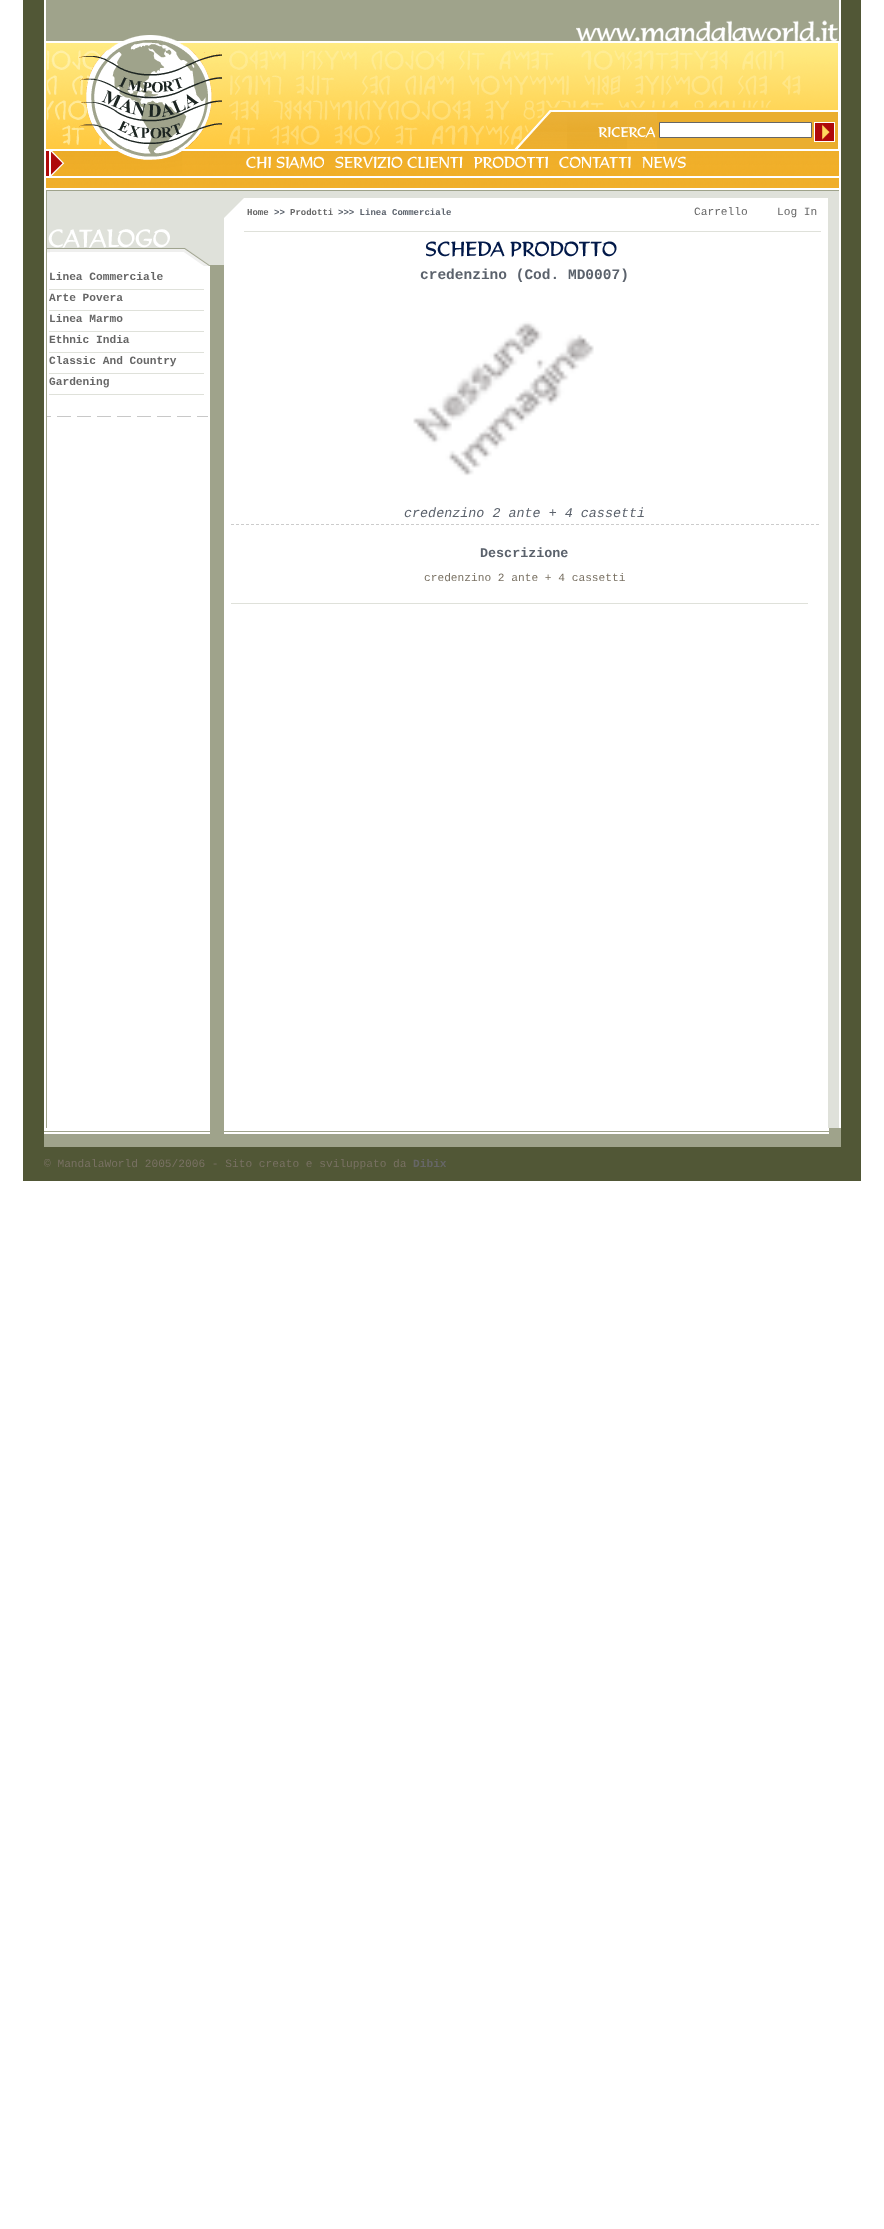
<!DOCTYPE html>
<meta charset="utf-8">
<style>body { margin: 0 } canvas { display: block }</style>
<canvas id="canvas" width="884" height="2229"></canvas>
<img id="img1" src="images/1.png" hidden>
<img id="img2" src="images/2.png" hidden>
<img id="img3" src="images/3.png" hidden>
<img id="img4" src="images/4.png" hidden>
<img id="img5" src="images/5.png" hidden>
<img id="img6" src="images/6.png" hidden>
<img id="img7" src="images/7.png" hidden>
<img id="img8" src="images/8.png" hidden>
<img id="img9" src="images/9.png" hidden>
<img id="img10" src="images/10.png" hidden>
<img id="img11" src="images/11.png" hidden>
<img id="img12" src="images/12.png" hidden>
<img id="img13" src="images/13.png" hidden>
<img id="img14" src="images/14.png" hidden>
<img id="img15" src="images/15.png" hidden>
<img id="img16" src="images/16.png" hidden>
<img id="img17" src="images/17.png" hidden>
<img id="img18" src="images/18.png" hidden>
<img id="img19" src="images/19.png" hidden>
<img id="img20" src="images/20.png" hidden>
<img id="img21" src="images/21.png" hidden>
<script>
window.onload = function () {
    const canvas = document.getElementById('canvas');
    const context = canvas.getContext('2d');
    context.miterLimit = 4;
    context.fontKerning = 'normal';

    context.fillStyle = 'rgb(255, 255, 255)';
    context.fillRect(0, 0, 884, 2229);
    context.fillStyle = 'rgb(81, 87, 54)';
    context.fillRect(23, 0, 838, 1181);
    context.fillStyle = 'rgb(255, 255, 255)';
    context.fillRect(44, 0, 797, 188);
    context.drawImage(document.getElementById('img1'), 46, 0, 793, 41);
    context.drawImage(document.getElementById('img2'), 46, 41, 470, 108);
    context.drawImage(document.getElementById('img3'), 516, 43, 322, 69);
    context.drawImage(document.getElementById('img4'), 516, 112, 141, 37);
    context.fillStyle = 'rgb(234, 174, 47)';
    context.fillRect(657, 112, 181, 37);
    context.fillStyle = 'rgb(255, 255, 255)';
    context.beginPath();
    context.rect(659.5, 122.5, 152, 15);
    context.fill();
    context.strokeStyle = 'rgb(102, 102, 102)';
    context.stroke();
    context.drawImage(document.getElementById('img5'), 814, 122, 21, 20);
    context.drawImage(document.getElementById('img6'), 46, 151, 793, 37);
    context.drawImage(document.getElementById('img7'), 46, 149, 136, 27);
    context.drawImage(document.getElementById('img8'), 246, 156, 78, 13);
    context.drawImage(document.getElementById('img9'), 335, 156, 128, 12);
    context.drawImage(document.getElementById('img10'), 474, 156, 74, 13);
    context.drawImage(document.getElementById('img11'), 559, 156, 72, 12);
    context.drawImage(document.getElementById('img12'), 642, 156, 44, 12);
    context.drawImage(document.getElementById('img13'), 44, 188, 797, 10);
    context.drawImage(document.getElementById('img14'), 44, 198, 166, 930);
    context.drawImage(document.getElementById('img15'), 47, 198, 163, 68);
    context.fillStyle = 'rgb(223, 225, 218)';
    context.fillRect(49, 289, 155, 1);
    context.fillRect(49, 310, 155, 1);
    context.fillRect(49, 331, 155, 1);
    context.fillRect(49, 352, 155, 1);
    context.fillRect(49, 373, 155, 1);
    context.fillRect(49, 394, 155, 1);
    context.drawImage(document.getElementById('img16'), 47, 416, 161, 1);
    context.fillStyle = 'rgb(159, 163, 139)';
    context.fillRect(210, 265, 14, 869);
    context.fillStyle = 'rgb(223, 225, 218)';
    context.fillRect(210, 198, 14, 67);
    context.fillStyle = 'rgb(255, 255, 255)';
    context.fillRect(224, 198, 617, 930);
    context.drawImage(document.getElementById('img17'), 224, 198, 20, 20);
    context.fillStyle = 'rgb(223, 225, 218)';
    context.fillRect(244, 231, 577, 1);
    context.drawImage(document.getElementById('img18'), 426, 241, 191, 16);
    context.drawImage(document.getElementById('img19'), 413, 321, 181, 155);
    context.beginPath();
    context.moveTo(231, 524.5);
    context.lineTo(819, 524.5);
    context.strokeStyle = 'rgb(204, 204, 204)';
    context.setLineDash([3, 2]);
    context.stroke();
    context.fillRect(231, 603, 577, 1);
    context.fillRect(828, 198, 11, 930);
    context.drawImage(document.getElementById('img20'), 44, 1128, 166, 6);
    context.fillStyle = 'rgb(159, 163, 139)';
    context.fillRect(829, 1128, 12, 6);
    context.drawImage(document.getElementById('img21'), 224, 1128, 605, 6);
    context.fillRect(44, 1134, 797, 13);
    context.font = 'bold 11.2px Liberation Mono';
    context.fillStyle = 'rgb(102, 102, 102)';
    context.fillText('Linea Commerciale', 49, 280);
    context.fillText('Arte Povera', 49, 301);
    context.fillText('Linea Marmo', 49, 322);
    context.fillText('Ethnic India', 49, 343);
    context.fillText('Classic And Country', 49, 364);
    context.fillText('Gardening', 49, 385);
    context.font = 'bold 9px Liberation Mono';
    context.fillText('Home', 247, 215);
    context.fillStyle = 'rgb(91, 98, 108)';
    context.fillText('>>', 274, 215);
    context.fillStyle = 'rgb(102, 102, 102)';
    context.fillText('Prodotti', 290, 215);
    context.fillStyle = 'rgb(91, 98, 108)';
    context.fillText('>>> Linea Commerciale', 338, 215);
    context.font = '11.2px Liberation Mono';
    context.fillStyle = 'rgb(102, 102, 102)';
    context.fillText('Carrello', 694, 215);
    context.fillText('Log In', 777, 215);
    context.font = 'bold 14.5px Liberation Mono';
    context.fillStyle = 'rgb(91, 98, 108)';
    context.fillText('credenzino (Cod. MD0007)', 420, 279);
    context.font = 'italic 13.4px Liberation Mono';
    context.fillText('credenzino 2 ante + 4 cassetti', 404, 517);
    context.font = 'bold 13.4px Liberation Mono';
    context.fillText('Descrizione', 480, 557);
    context.font = '11.2px Liberation Mono';
    context.fillStyle = 'rgb(121, 113, 99)';
    context.fillText('credenzino 2 ante + 4 cassetti', 424, 581);
    context.fillText('© MandalaWorld 2005/2006 - Sito creato e sviluppato da', 44, 1167);
    context.font = 'bold 11.2px Liberation Mono';
    context.fillStyle = 'rgb(102, 102, 102)';
    context.fillText('Dibix', 413, 1167);
};
</script>
